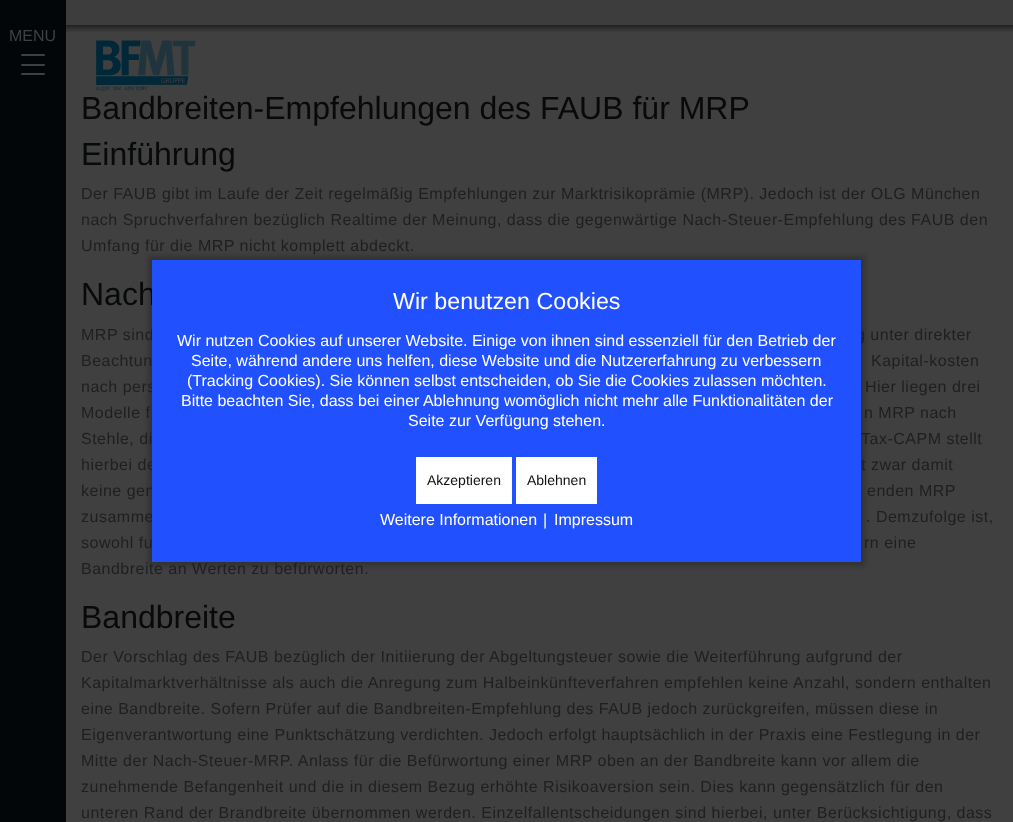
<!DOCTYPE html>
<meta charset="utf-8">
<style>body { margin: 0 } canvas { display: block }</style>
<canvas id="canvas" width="1013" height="822"></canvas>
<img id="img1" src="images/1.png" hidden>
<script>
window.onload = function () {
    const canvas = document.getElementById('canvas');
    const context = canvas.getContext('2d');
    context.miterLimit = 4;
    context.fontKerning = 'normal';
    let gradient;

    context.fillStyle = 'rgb(64, 64, 64)';
    context.fillRect(0, 0, 1013, 822);
    context.fillStyle = 'rgb(2, 6, 8)';
    context.fillRect(0, 0, 66, 822);
    context.fillStyle = 'rgb(64, 64, 64)';
    context.beginPath();
    context.roundRect(21, 54, 24, 2, 1);
    context.fill();
    context.beginPath();
    context.roundRect(21, 64, 24, 2, 1);
    context.fill();
    context.beginPath();
    context.roundRect(21, 73, 24, 2, 1);
    context.fill();
    context.fillStyle = 'rgb(61, 61, 61)';
    context.fillRect(66, 0, 947, 25);
    gradient = context.createLinearGradient(540, 25, 540, 41);
    gradient.addColorStop(0, 'rgb(32, 32, 32)');
    gradient.addColorStop(0.25, 'rgb(51, 51, 51)');
    gradient.addColorStop(0.5, 'rgb(64, 64, 64)');
    gradient.addColorStop(1, 'rgb(64, 64, 64)');
    context.fillStyle = gradient;
    context.fillRect(66, 25, 947, 7);
    context.drawImage(document.getElementById('img1'), 96, 40, 100, 51);
    context.fillStyle = 'rgba(0, 0, 0, 0.21)';
    context.filter = 'blur(2.5px)';
    context.beginPath();
    context.rect(148, 256, 717, 310);
    context.fill();
    context.filter = 'none';
    context.font = '16px Liberation Sans';
    context.fillStyle = 'rgb(64, 64, 64)';
    context.fillText('MENU', 9, 41);
    context.font = '32px Liberation Sans';
    context.fillStyle = 'rgb(8, 9, 10)';
    context.fillText('Bandbreiten-Empfehlungen des FAUB für MRP', 81, 119);
    context.fillText('Einführung', 81, 165);
    context.letterSpacing = '0.5px';
    context.font = '16px Liberation Sans';
    context.fillStyle = 'rgb(31, 31, 31)';
    context.fillText('Der FAUB gibt im Laufe der Zeit regelmäßig Empfehlungen zur Marktrisikoprämie (MRP). Jedoch ist der OLG München', 81, 199);
    context.fillText('nach Spruchverfahren bezüglich Realtime der Meinung, dass die gegenwärtige Nach-Steuer-Empfehlung des FAUB den', 81, 225);
    context.fillText('Umfang für die MRP nicht komplett abdeckt.', 81, 251);
    context.letterSpacing = '0px';
    context.font = '32px Liberation Sans';
    context.fillStyle = 'rgb(8, 9, 10)';
    context.fillText('Nach', 81, 305);
    context.letterSpacing = '0.5px';
    context.font = '16px Liberation Sans';
    context.fillStyle = 'rgb(31, 31, 31)';
    context.fillText('MRP sind', 81, 340);
    context.fillText('g unter direkter', 856, 340);
    context.fillText('Beachtun', 81, 366);
    context.fillText('Kapital-kosten', 871, 366);
    context.fillText('nach pers', 81, 392);
    context.fillText('Hier liegen drei', 865, 392);
    context.fillText('Modelle f', 81, 418);
    context.fillText('n MRP nach', 864, 418);
    context.fillText('Stehle, di', 81, 444);
    context.fillText('Tax-CAPM stellt', 861, 444);
    context.fillText('hierbei de', 81, 470);
    context.fillText('t zwar damit', 861, 470);
    context.fillText('keine gen', 81, 496);
    context.fillText('enden MRP', 867, 496);
    context.fillText('zusamme', 81, 522);
    context.fillText('. Demzufolge ist,', 866, 522);
    context.fillText('sowohl fu', 81, 548);
    context.fillText('rn eine', 864, 548);
    context.fillText('Bandbreite an Werten zu befürworten.', 81, 574);
    context.letterSpacing = '0px';
    context.font = '32px Liberation Sans';
    context.fillStyle = 'rgb(8, 9, 10)';
    context.fillText('Bandbreite', 81, 628);
    context.letterSpacing = '0.5px';
    context.font = '16px Liberation Sans';
    context.fillStyle = 'rgb(31, 31, 31)';
    context.fillText('Der Vorschlag des FAUB bezüglich der Initiierung der Abgeltungsteuer sowie die Weiterführung aufgrund der', 81, 662);
    context.fillText('Kapitalmarktverhältnisse als auch die Anregung zum Halbeinkünfteverfahren empfehlen keine Anzahl, sondern enthalten', 81, 688);
    context.fillText('eine Bandbreite. Sofern Prüfer auf die Bandbreiten-Empfehlung des FAUB jedoch zurückgreifen, müssen diese in', 81, 714);
    context.fillText('Eigenverantwortung eine Punktschätzung verdichten. Jedoch erfolgt hauptsächlich in der Praxis eine Festlegung in der', 81, 740);
    context.fillText('Mitte der Nach-Steuer-MRP. Anlass für die Befürwortung einer MRP oben an der Bandbreite kann vor allem die', 81, 766);
    context.fillText('zunehmende Befangenheit und die in diesem Bezug erhöhte Risikoaversion sein. Dies kann gegensätzlich für den', 81, 792);
    context.fillText('unteren Rand der Brandbreite übernommen werden. Einzelfallentscheidungen sind hierbei, unter Berücksichtigung, dass', 81, 818);
    context.fillStyle = 'rgb(33, 81, 255)';
    context.fillRect(152, 260, 709, 302);
    context.letterSpacing = '0px';
    context.font = '23.25px Liberation Sans';
    context.fillStyle = 'rgb(255, 255, 255)';
    context.fillText('Wir benutzen Cookies', 393, 309);
    context.font = '16px Liberation Sans';
    context.fillText('Wir nutzen Cookies auf unserer Website. Einige von ihnen sind essenziell für den Betrieb der', 177, 346);
    context.fillText('Seite, während andere uns helfen, diese Website und die Nutzererfahrung zu verbessern', 191, 366);
    context.fillText('(Tracking Cookies). Sie können selbst entscheiden, ob Sie die Cookies zulassen möchten.', 187, 386);
    context.fillText('Bitte beachten Sie, dass bei einer Ablehnung womöglich nicht mehr alle Funktionalitäten der', 181, 406);
    context.fillText('Seite zur Verfügung stehen.', 408, 426);
    context.fillRect(416, 457, 96, 47);
    context.font = '14px Liberation Sans';
    context.fillStyle = 'rgb(17, 17, 17)';
    context.fillText('Akzeptieren', 427, 485);
    context.fillStyle = 'rgb(255, 255, 255)';
    context.fillRect(516, 457, 81, 47);
    context.fillStyle = 'rgb(17, 17, 17)';
    context.fillText('Ablehnen', 527, 485);
    context.font = '16px Liberation Sans';
    context.fillStyle = 'rgb(255, 255, 255)';
    context.fillText('Weitere Informationen', 380, 525);
    context.fillText('|', 543, 525);
    context.fillText('Impressum', 554, 525);
};
</script>
